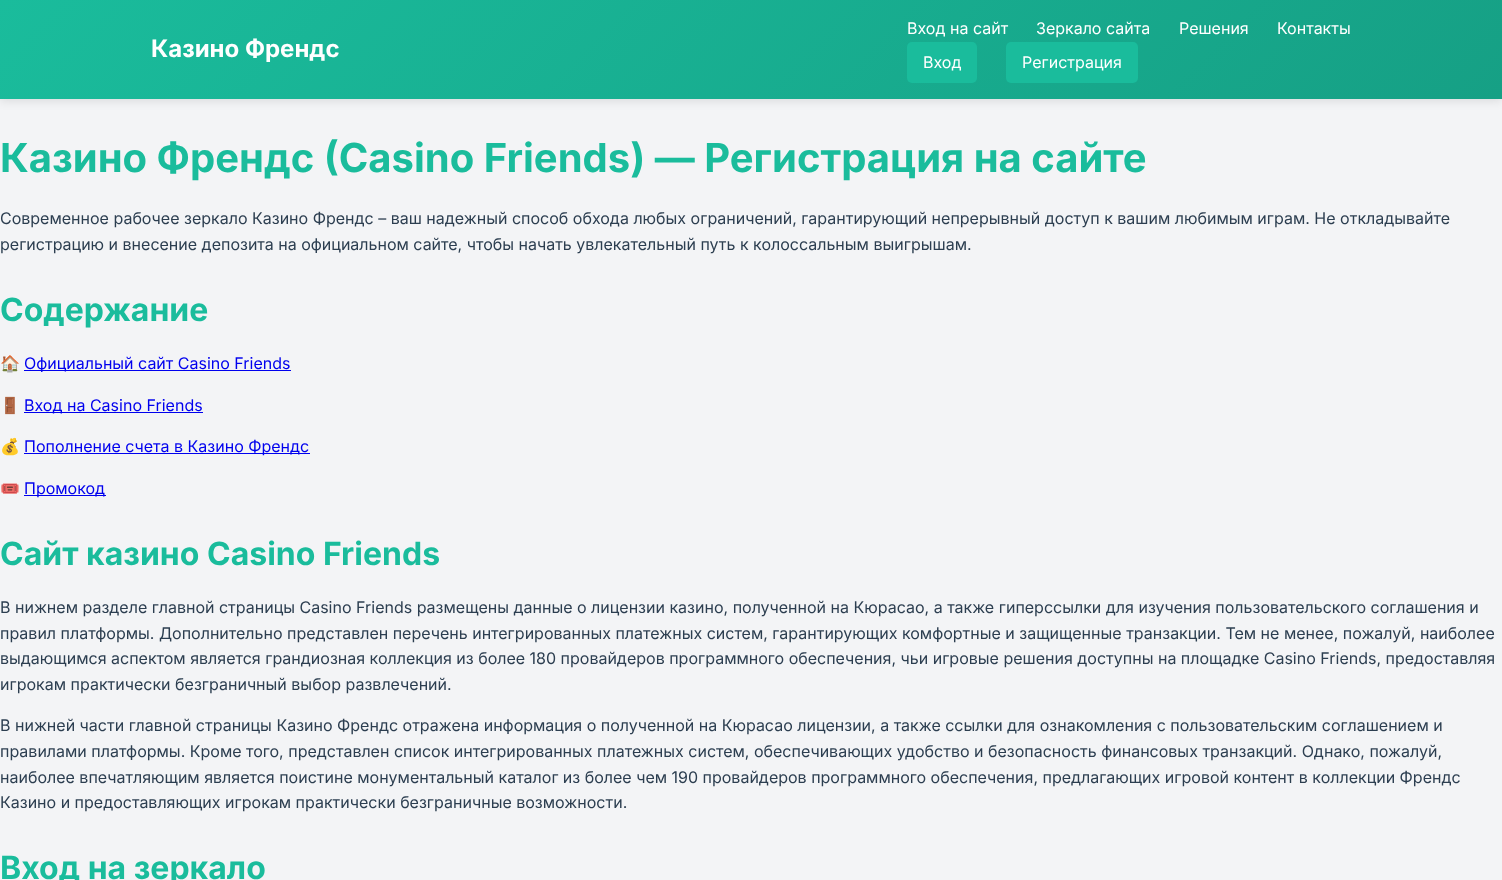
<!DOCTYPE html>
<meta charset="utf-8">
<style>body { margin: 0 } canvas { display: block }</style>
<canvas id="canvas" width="1502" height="880"></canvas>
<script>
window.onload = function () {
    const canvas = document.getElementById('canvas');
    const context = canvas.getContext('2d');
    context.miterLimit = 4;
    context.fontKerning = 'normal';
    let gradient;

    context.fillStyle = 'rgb(243, 244, 246)';
    context.fillRect(0, 0, 1502, 880);
    context.fillStyle = 'rgba(0, 0, 0, 0.1)';
    context.filter = 'blur(5px)';
    context.beginPath();
    context.rect(0, 2, 1502, 99);
    context.fill();
    context.filter = 'none';
    gradient = context.createLinearGradient(351, -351, 1151, 450);
    gradient.addColorStop(0, 'rgb(26, 188, 156)');
    gradient.addColorStop(1, 'rgb(22, 160, 133)');
    context.fillStyle = gradient;
    context.fillRect(0, 0, 1502, 99);
    context.fillStyle = 'rgb(26, 188, 156)';
    context.beginPath();
    context.roundRect(907, 42, 70, 41, 5);
    context.fill();
    context.beginPath();
    context.roundRect(1006, 42, 132, 41, 5);
    context.fill();
    context.fillStyle = 'rgb(0, 0, 238)';
    context.fillRect(24, 370, 267, 1);
    context.fillRect(24, 412, 179, 1);
    context.fillRect(24, 453, 286, 1);
    context.fillRect(24, 495, 82, 1);
    context.font = 'bold 24px Inter';
    context.fillStyle = 'rgb(255, 255, 255)';
    context.fillText('Казино Френдс', 151, 57);
    context.font = '16px Inter';
    context.fillText('Вход на сайт', 907, 34);
    context.fillText('Зеркало сайта', 1036, 34);
    context.fillText('Решения', 1179, 34);
    context.fillText('Контакты', 1277, 34);
    context.fillText('Вход', 923, 68);
    context.fillText('Регистрация', 1022, 68);
    context.font = 'bold 40px Inter';
    context.fillStyle = 'rgb(26, 188, 156)';
    context.fillText('Казино Френдс (Casino Friends) — Регистрация на сайте', 0, 172);
    context.font = '16px Inter';
    context.fillStyle = 'rgb(44, 62, 80)';
    context.fillText('Современное рабочее зеркало Казино Френдс – ваш надежный способ обхода любых ограничений, гарантирующий непрерывный доступ к вашим любимым играм. Не откладывайте', 0, 224);
    context.fillText('регистрацию и внесение депозита на официальном сайте, чтобы начать увлекательный путь к колоссальным выигрышам.', 0, 250);
    context.font = 'bold 32px Inter';
    context.fillStyle = 'rgb(26, 188, 156)';
    context.fillText('Содержание', 0, 321);
    context.font = '16px Noto Color Emoji';
    context.fillStyle = 'rgb(44, 62, 80)';
    context.fillText('🏠', 0, 369);
    context.font = '16px Inter';
    context.fillStyle = 'rgb(0, 0, 238)';
    context.fillText('Официальный сайт Casino Friends', 24, 369);
    context.font = '16px Noto Color Emoji';
    context.fillStyle = 'rgb(44, 62, 80)';
    context.fillText('🚪', 0, 411);
    context.font = '16px Inter';
    context.fillStyle = 'rgb(0, 0, 238)';
    context.fillText('Вход на Casino Friends', 24, 411);
    context.font = '16px Noto Color Emoji';
    context.fillStyle = 'rgb(44, 62, 80)';
    context.fillText('💰', 0, 452);
    context.font = '16px Inter';
    context.fillStyle = 'rgb(0, 0, 238)';
    context.fillText('Пополнение счета в Казино Френдс', 24, 452);
    context.font = '16px Noto Color Emoji';
    context.fillStyle = 'rgb(44, 62, 80)';
    context.fillText('🎟️', 0, 494);
    context.font = '16px Inter';
    context.fillStyle = 'rgb(0, 0, 238)';
    context.fillText('Промокод', 24, 494);
    context.font = 'bold 32px Inter';
    context.fillStyle = 'rgb(26, 188, 156)';
    context.fillText('Сайт казино Casino Friends', 0, 565);
    context.font = '16px Inter';
    context.fillStyle = 'rgb(44, 62, 80)';
    context.fillText('В нижнем разделе главной страницы Casino Friends размещены данные о лицензии казино, полученной на Кюрасао, а также гиперссылки для изучения пользовательского соглашения и', 0, 613);
    context.fillText('правил платформы. Дополнительно представлен перечень интегрированных платежных систем, гарантирующих комфортные и защищенные транзакции. Тем не менее, пожалуй, наиболее', 0, 639);
    context.fillText('выдающимся аспектом является грандиозная коллекция из более 180 провайдеров программного обеспечения, чьи игровые решения доступны на площадке Casino Friends, предоставляя', 0, 664);
    context.fillText('игрокам практически безграничный выбор развлечений.', 0, 690);
    context.fillText('В нижней части главной страницы Казино Френдс отражена информация о полученной на Кюрасао лицензии, а также ссылки для ознакомления с пользовательским соглашением и', 0, 731);
    context.fillText('правилами платформы. Кроме того, представлен список интегрированных платежных систем, обеспечивающих удобство и безопасность финансовых транзакций. Однако, пожалуй,', 0, 757);
    context.fillText('наиболее впечатляющим является поистине монументальный каталог из более чем 190 провайдеров программного обеспечения, предлагающих игровой контент в коллекции Френдс', 0, 783);
    context.fillText('Казино и предоставляющих игрокам практически безграничные возможности.', 0, 808);
    context.font = 'bold 32px Inter';
    context.fillStyle = 'rgb(26, 188, 156)';
    context.fillText('Вход на зеркало', 0, 879);
};
</script>
